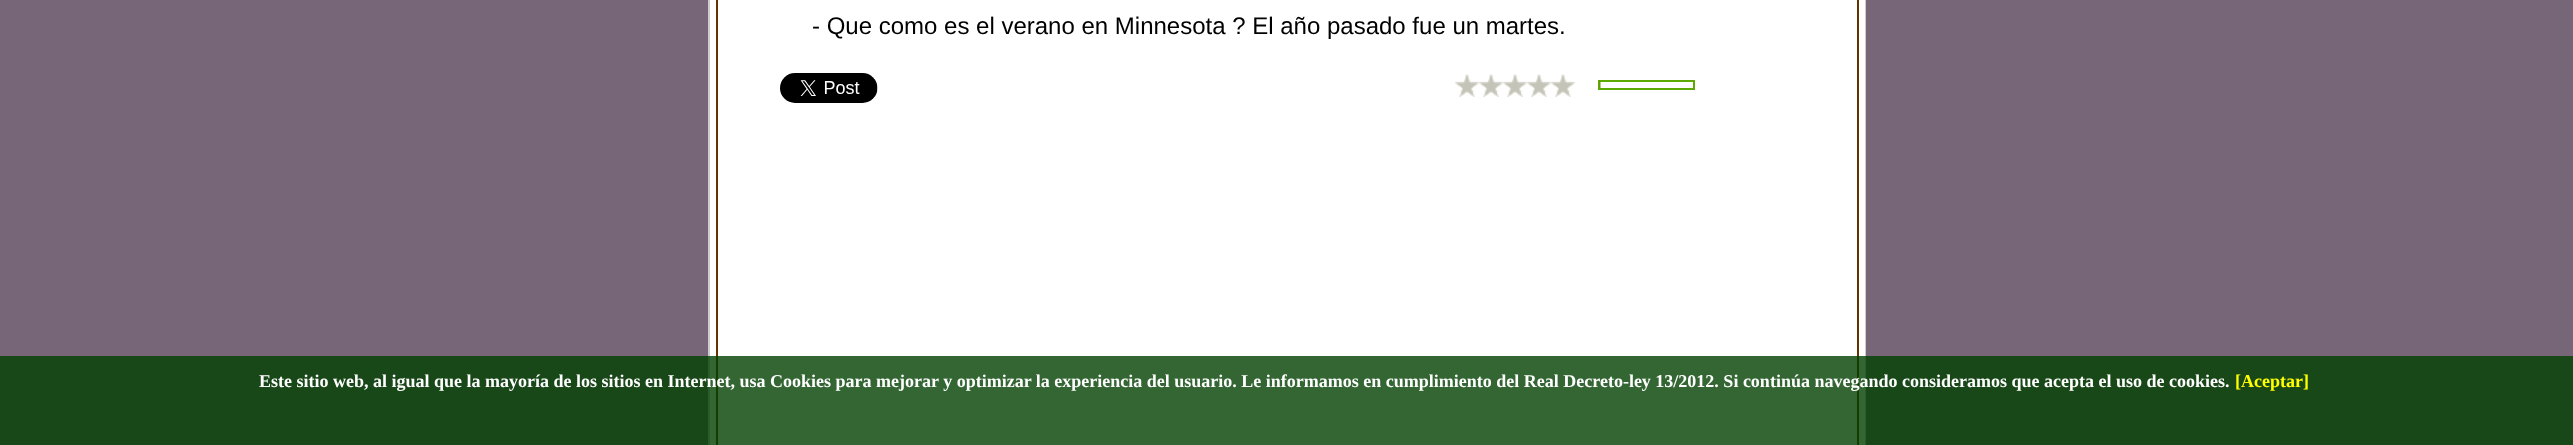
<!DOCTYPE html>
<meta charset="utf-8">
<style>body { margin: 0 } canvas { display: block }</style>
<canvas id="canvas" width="2573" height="445"></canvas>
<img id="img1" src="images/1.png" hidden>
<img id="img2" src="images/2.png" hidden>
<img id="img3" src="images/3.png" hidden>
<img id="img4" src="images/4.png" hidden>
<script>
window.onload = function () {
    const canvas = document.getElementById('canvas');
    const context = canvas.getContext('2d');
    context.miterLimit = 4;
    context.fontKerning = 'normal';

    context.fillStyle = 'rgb(119, 102, 119)';
    context.fillRect(0, 0, 2573, 445);
    context.strokeStyle = 'rgb(204, 204, 204)';
    context.lineWidth = 2;
    context.strokeRect(709, -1, 1156, 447);
    context.fillStyle = 'rgb(255, 255, 255)';
    context.fillRect(710, 0, 1155, 445);
    context.strokeStyle = 'rgb(102, 51, 0)';
    context.strokeRect(717, -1, 1141, 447);
    context.drawImage(document.getElementById('img1'), 780, 73, 98, 30);
    context.drawImage(document.getElementById('img2'), 1455, 74, 24, 23);
    context.drawImage(document.getElementById('img3'), 1479, 74, 24, 23);
    context.drawImage(document.getElementById('img3'), 1503, 74, 24, 23);
    context.drawImage(document.getElementById('img2'), 1527, 74, 24, 23);
    context.drawImage(document.getElementById('img2'), 1551, 74, 24, 23);
    context.strokeStyle = 'rgb(94, 170, 5)';
    context.strokeRect(1599, 81, 95, 8);
    context.drawImage(document.getElementById('img4'), 1599, 80, 2, 8);
    context.fillStyle = 'rgba(0, 64, 0, 0.8)';
    context.fillRect(0, 356, 2573, 89);
    context.font = '24px Liberation Sans';
    context.fillStyle = 'rgb(0, 0, 0)';
    context.fillText('- Que como es el verano en Minnesota ? El año pasado fue un martes.', 812, 34);
    context.font = 'bold 18px Liberation Serif';
    context.fillStyle = 'rgb(255, 255, 255)';
    context.fillText('Este sitio web, al igual que la mayoría de los sitios en Internet, usa Cookies para mejorar y optimizar la experiencia del usuario. Le informamos en cumplimiento del Real Decreto-ley 13/2012. Si continúa navegando consideramos que acepta el uso de cookies.', 259, 387);
    context.fillStyle = 'rgb(255, 255, 0)';
    context.fillText('[Aceptar]', 2235, 387);
};
</script>
